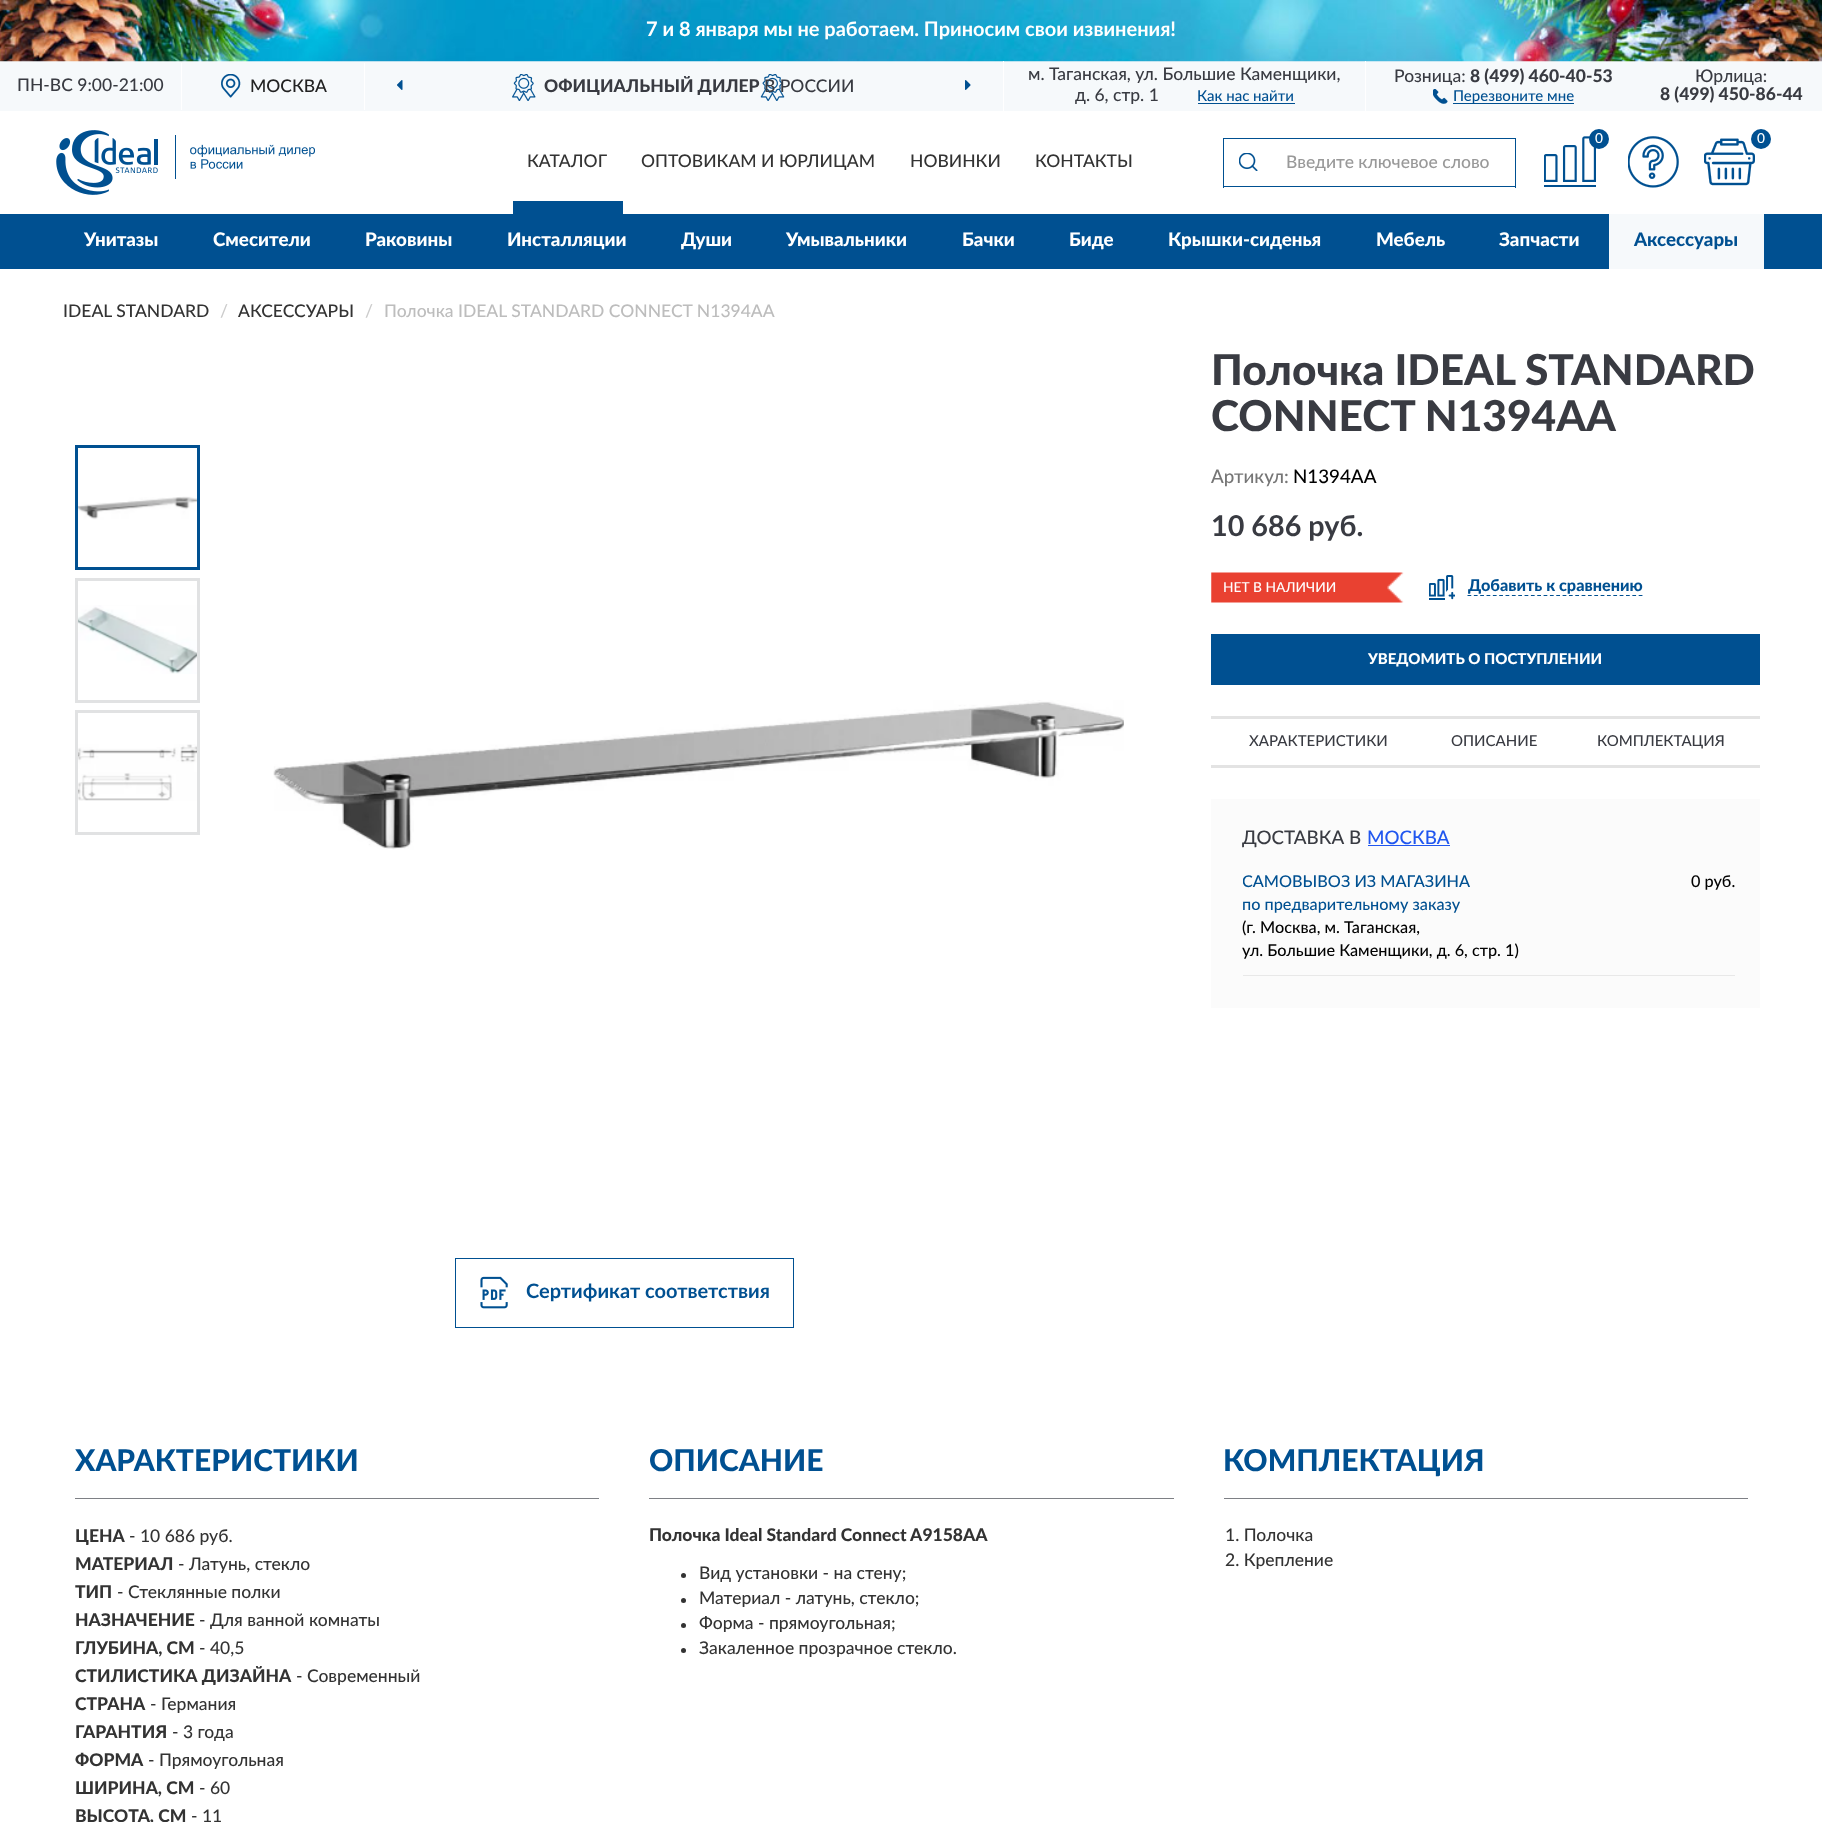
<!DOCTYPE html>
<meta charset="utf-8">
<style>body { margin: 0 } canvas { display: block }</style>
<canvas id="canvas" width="1822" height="1822"></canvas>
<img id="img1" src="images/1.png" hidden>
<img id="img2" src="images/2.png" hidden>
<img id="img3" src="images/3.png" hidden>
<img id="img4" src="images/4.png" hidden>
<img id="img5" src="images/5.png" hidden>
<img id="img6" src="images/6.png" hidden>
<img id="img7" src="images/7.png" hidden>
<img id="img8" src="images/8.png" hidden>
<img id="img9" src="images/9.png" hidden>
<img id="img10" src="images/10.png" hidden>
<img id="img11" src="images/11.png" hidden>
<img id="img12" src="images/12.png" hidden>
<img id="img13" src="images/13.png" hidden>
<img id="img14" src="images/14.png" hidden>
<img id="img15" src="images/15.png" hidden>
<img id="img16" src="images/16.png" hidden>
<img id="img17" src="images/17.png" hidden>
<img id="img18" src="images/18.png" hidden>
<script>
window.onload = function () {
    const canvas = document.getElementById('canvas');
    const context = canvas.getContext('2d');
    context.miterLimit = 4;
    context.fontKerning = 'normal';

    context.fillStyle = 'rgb(255, 255, 255)';
    context.fillRect(0, 0, 1822, 1822);
    context.fillStyle = 'rgb(246, 249, 251)';
    context.fillRect(0, 61, 1822, 50);
    context.drawImage(document.getElementById('img1'), 0, 0, 1822, 62);
    context.fillStyle = 'rgb(255, 255, 255)';
    context.fillRect(181, 63, 1, 47);
    context.fillRect(364, 63, 1, 47);
    context.drawImage(document.getElementById('img2'), 221, 74, 20, 24);
    context.drawImage(document.getElementById('img3'), 512, 74, 273, 27);
    context.drawImage(document.getElementById('img4'), 397, 80, 6, 10);
    context.drawImage(document.getElementById('img5'), 965, 80, 6, 10);
    context.fillRect(1365, 61, 1, 50);
    context.fillRect(1003, 61, 1, 50);
    context.fillStyle = 'rgb(0, 80, 145)';
    context.fillRect(1198, 103, 97, 1);
    context.drawImage(document.getElementById('img6'), 1433, 89, 15, 15);
    context.fillRect(1453, 103, 121, 1);
    context.drawImage(document.getElementById('img7'), 56, 130, 259, 65);
    context.drawImage(document.getElementById('img8'), 1544, 136, 52, 51);
    context.beginPath();
    context.arc(1599, 139, 10, 0, 2 * Math.PI);
    context.fill();
    context.drawImage(document.getElementById('img9'), 1628, 136, 51, 52);
    context.drawImage(document.getElementById('img10'), 1704, 138, 51, 48);
    context.beginPath();
    context.arc(1761, 139, 10, 0, 2 * Math.PI);
    context.fill();
    context.fillRect(513, 201, 110, 13);
    context.drawImage(document.getElementById('img11'), 1239, 153, 19, 18);
    context.fillRect(1223, 138, 293, 1);
    context.fillRect(1223, 186, 50, 1);
    context.fillRect(1223, 138, 1, 50);
    context.fillStyle = 'rgb(255, 255, 255)';
    context.fillRect(1271, 186, 2, 1);
    context.fillStyle = 'rgb(0, 80, 145)';
    context.fillRect(1515, 138, 1, 50);
    context.fillRect(1271, 186, 245, 1);
    context.fillRect(0, 214, 1822, 55);
    context.fillStyle = 'rgb(246, 249, 251)';
    context.fillRect(1609, 214, 155, 55);
    context.drawImage(document.getElementById('img12'), 1211, 572, 193, 31);
    context.drawImage(document.getElementById('img13'), 1429, 575, 26, 25);
    context.beginPath();
    context.moveTo(1467.5, 595.5);
    context.lineTo(1642.5, 595.5);
    context.strokeStyle = 'rgb(0, 80, 145)';
    context.lineWidth = 1.2;
    context.setLineDash([3.75, 2.59]);
    context.stroke();
    context.fillStyle = 'rgb(0, 80, 145)';
    context.fillRect(1211, 634, 549, 51);
    context.fillStyle = 'rgb(227, 227, 227)';
    context.fillRect(1211, 716, 549, 3);
    context.fillRect(1211, 765, 549, 3);
    context.fillStyle = 'rgb(251, 251, 251)';
    context.fillRect(1211, 799, 549, 209);
    context.fillStyle = 'rgb(32, 86, 239)';
    context.fillRect(1368, 845, 82, 1);
    context.fillStyle = 'rgb(232, 232, 232)';
    context.fillRect(1243, 975, 492, 1);
    context.drawImage(document.getElementById('img14'), 78, 496, 119, 24);
    context.lineWidth = 3;
    context.setLineDash([]);
    context.strokeRect(76.5, 446.5, 122, 122);
    context.drawImage(document.getElementById('img15'), 78, 605, 119, 69);
    context.strokeStyle = 'rgb(225, 226, 227)';
    context.strokeRect(76.5, 579.5, 122, 122);
    context.drawImage(document.getElementById('img16'), 78, 744, 119, 57);
    context.strokeRect(76.5, 711.5, 122, 122);
    context.drawImage(document.getElementById('img17'), 273, 700, 851, 150);
    context.strokeStyle = 'rgb(0, 80, 145)';
    context.lineWidth = 1;
    context.strokeRect(455.5, 1258.5, 338, 69);
    context.drawImage(document.getElementById('img18'), 480, 1276, 28, 33);
    context.fillStyle = 'rgb(126, 128, 133)';
    context.fillRect(75, 1498, 524, 1);
    context.fillRect(649, 1498, 525, 1);
    context.fillStyle = 'rgb(51, 51, 51)';
    context.beginPath();
    context.arc(683.5, 1575.5, 2.5, 0, 2 * Math.PI);
    context.fill();
    context.beginPath();
    context.arc(683.5, 1600.5, 2.5, 0, 2 * Math.PI);
    context.fill();
    context.beginPath();
    context.arc(683.5, 1625.5, 2.5, 0, 2 * Math.PI);
    context.fill();
    context.beginPath();
    context.arc(683.5, 1650.5, 2.5, 0, 2 * Math.PI);
    context.fill();
    context.fillStyle = 'rgb(126, 128, 133)';
    context.fillRect(1224, 1498, 524, 1);
    context.font = 'bold 20px Lato';
    context.fillStyle = 'rgb(255, 255, 255)';
    context.fillText('7 и 8 января мы не работаем. Приносим свои извинения!', 646, 36);
    context.font = '500 17.5px Lato';
    context.fillStyle = 'rgb(57, 59, 66)';
    context.fillText('ПН-ВС 9:00-21:00', 17, 91);
    context.fillStyle = 'rgb(34, 34, 34)';
    context.fillText('МОСКВА', 250, 92);
    context.font = '900 17.5px Lato';
    context.fillStyle = 'rgb(57, 59, 66)';
    context.fillText('ОФИЦИАЛЬНЫЙ ДИЛЕР', 544, 92);
    context.font = '500 17.5px Lato';
    context.fillText('В РОССИИ', 764, 92);
    context.fillText('м. Таганская, ул. Большие Каменщики,', 1028, 80);
    context.fillText('д. 6, стр. 1', 1075, 101);
    context.font = '500 15px Lato';
    context.fillStyle = 'rgb(0, 80, 145)';
    context.fillText('Как нас найти', 1197, 101);
    context.font = '500 17.5px Lato';
    context.fillStyle = 'rgb(57, 59, 66)';
    context.fillText('Розница:', 1394, 82);
    context.font = '900 17.5px Lato';
    context.fillText('8 (499) 460-40-53', 1470, 82);
    context.font = '500 15px Lato';
    context.fillStyle = 'rgb(0, 80, 145)';
    context.fillText('Перезвоните мне', 1453, 101);
    context.font = '500 17.5px Lato';
    context.fillStyle = 'rgb(57, 59, 66)';
    context.fillText('Юрлица:', 1695, 82);
    context.font = '900 17.5px Lato';
    context.fillText('8 (499) 450-86-44', 1660, 100);
    context.font = '500 13.75px Lato';
    context.fillStyle = 'rgb(255, 255, 255)';
    context.fillText('0', 1595, 143);
    context.fillText('0', 1757, 143);
    context.font = '500 17.5px Lato';
    context.fillStyle = 'rgb(51, 51, 51)';
    context.fillText('КАТАЛОГ', 527, 167);
    context.fillText('ОПТОВИКАМ И ЮРЛИЦАМ', 641, 167);
    context.fillText('НОВИНКИ', 910, 167);
    context.fillText('КОНТАКТЫ', 1035, 167);
    context.fillStyle = 'rgb(153, 153, 153)';
    context.fillText('Введите ключевое слово', 1286, 168);
    context.font = '900 18.75px Lato';
    context.fillStyle = 'rgb(255, 255, 255)';
    context.fillText('Унитазы', 84, 246);
    context.fillText('Смесители', 213, 246);
    context.fillText('Раковины', 365, 246);
    context.fillText('Инсталляции', 507, 246);
    context.fillText('Души', 681, 246);
    context.fillText('Умывальники', 786, 246);
    context.fillText('Бачки', 962, 246);
    context.fillText('Биде', 1069, 246);
    context.fillText('Крышки-сиденья', 1168, 246);
    context.fillText('Мебель', 1376, 246);
    context.fillText('Запчасти', 1499, 246);
    context.fillStyle = 'rgb(0, 80, 145)';
    context.fillText('Аксессуары', 1634, 246);
    context.font = '500 17.5px Lato';
    context.fillStyle = 'rgb(51, 51, 51)';
    context.fillText('IDEAL STANDARD', 63, 317);
    context.fillStyle = 'rgb(204, 204, 204)';
    context.fillText('/', 220, 317);
    context.fillStyle = 'rgb(51, 51, 51)';
    context.fillText('АКСЕССУАРЫ', 238, 317);
    context.fillStyle = 'rgb(204, 204, 204)';
    context.fillText('/', 365, 317);
    context.fillStyle = 'rgb(189, 189, 189)';
    context.fillText('Полочка IDEAL STANDARD CONNECT N1394AA', 384, 317);
    context.font = '900 42.5px Lato';
    context.fillStyle = 'rgb(57, 59, 66)';
    context.fillText('Полочка IDEAL STANDARD', 1211, 385);
    context.fillText('CONNECT N1394AA', 1211, 431);
    context.font = '500 18.75px Lato';
    context.fillStyle = 'rgb(118, 118, 118)';
    context.fillText('Артикул:', 1211, 483);
    context.fillStyle = 'rgb(1, 1, 1)';
    context.fillText('N1394AA', 1293, 483);
    context.font = 'bold 28.75px Lato';
    context.fillStyle = 'rgb(57, 59, 66)';
    context.fillText('10 686 руб.', 1211, 536);
    context.font = '500 13.75px Lato';
    context.fillStyle = 'rgb(255, 255, 255)';
    context.fillText('НЕТ В НАЛИЧИИ', 1223, 592);
    context.font = '900 16.25px Lato';
    context.fillStyle = 'rgb(0, 80, 145)';
    context.fillText('Добавить к сравнению', 1468, 591);
    context.font = '900 15px Lato';
    context.fillStyle = 'rgb(255, 255, 255)';
    context.fillText('УВЕДОМИТЬ О ПОСТУПЛЕНИИ', 1368, 664);
    context.font = '500 15px Lato';
    context.fillStyle = 'rgb(57, 59, 66)';
    context.fillText('ХАРАКТЕРИСТИКИ', 1249, 746);
    context.fillText('ОПИСАНИЕ', 1451, 746);
    context.fillText('КОМПЛЕКТАЦИЯ', 1597, 746);
    context.font = '500 18.75px Lato';
    context.fillText('ДОСТАВКА В', 1242, 844);
    context.fillStyle = 'rgb(32, 86, 239)';
    context.fillText('МОСКВА', 1367, 844);
    context.save();
    context.beginPath();
    context.rect(1243, 871, 492, 24);
    context.clip();
    context.font = '500 16.25px Lato';
    context.fillStyle = 'rgb(0, 80, 145)';
    context.fillText('САМОВЫВОЗ ИЗ МАГАЗИНА', 1242, 887);
    context.restore();
    context.font = '500 16.25px Lato';
    context.fillStyle = 'rgb(1, 1, 1)';
    context.fillText('0 руб.', 1691, 887);
    context.fillStyle = 'rgb(0, 80, 145)';
    context.fillText('по предварительному заказу', 1242, 910);
    context.fillStyle = 'rgb(1, 1, 1)';
    context.fillText('(г. Москва, м. Таганская,', 1242, 933);
    context.fillText('ул. Большие Каменщики, д. 6, стр. 1)', 1242, 956);
    context.font = 'bold 20px Lato';
    context.fillStyle = 'rgb(0, 80, 145)';
    context.fillText('Сертификат соответствия', 526, 1298);
    context.font = '900 30px Lato';
    context.fillText('ХАРАКТЕРИСТИКИ', 75, 1471);
    context.font = '900 17.5px Lato';
    context.fillStyle = 'rgb(51, 51, 51)';
    context.fillText('ЦЕНА', 75, 1542);
    context.font = '500 17.5px Lato';
    context.fillText('- 10 686 руб.', 129, 1542);
    context.font = '900 17.5px Lato';
    context.fillText('МАТЕРИАЛ', 75, 1570);
    context.font = '500 17.5px Lato';
    context.fillText('- Латунь, стекло', 178, 1570);
    context.font = '900 17.5px Lato';
    context.fillText('ТИП', 75, 1598);
    context.font = '500 17.5px Lato';
    context.fillText('- Стеклянные полки', 117, 1598);
    context.font = '900 17.5px Lato';
    context.fillText('НАЗНАЧЕНИЕ', 75, 1626);
    context.font = '500 17.5px Lato';
    context.fillText('- Для ванной комнаты', 199, 1626);
    context.font = '900 17.5px Lato';
    context.fillText('ГЛУБИНА, СМ', 75, 1654);
    context.font = '500 17.5px Lato';
    context.fillText('- 40,5', 199, 1654);
    context.font = '900 17.5px Lato';
    context.fillText('СТИЛИСТИКА ДИЗАЙНА', 75, 1682);
    context.font = '500 17.5px Lato';
    context.fillText('- Современный', 296, 1682);
    context.font = '900 17.5px Lato';
    context.fillText('СТРАНА', 75, 1710);
    context.font = '500 17.5px Lato';
    context.fillText('- Германия', 150, 1710);
    context.font = '900 17.5px Lato';
    context.fillText('ГАРАНТИЯ', 75, 1738);
    context.font = '500 17.5px Lato';
    context.fillText('- 3 года', 172, 1738);
    context.font = '900 17.5px Lato';
    context.fillText('ФОРМА', 75, 1766);
    context.font = '500 17.5px Lato';
    context.fillText('- Прямоугольная', 148, 1766);
    context.font = '900 17.5px Lato';
    context.fillText('ШИРИНА, СМ', 75, 1794);
    context.font = '500 17.5px Lato';
    context.fillText('- 60', 199, 1794);
    context.font = '900 17.5px Lato';
    context.fillText('ВЫСОТА, СМ', 75, 1822);
    context.font = '500 17.5px Lato';
    context.fillText('- 11', 191, 1822);
    context.font = '900 30px Lato';
    context.fillStyle = 'rgb(0, 80, 145)';
    context.fillText('ОПИСАНИЕ', 649, 1471);
    context.font = '900 17.5px Lato';
    context.fillStyle = 'rgb(51, 51, 51)';
    context.fillText('Полочка Ideal Standard Connect A9158AA', 649, 1541);
    context.font = '500 17.5px Lato';
    context.fillText('Вид установки - на стену;', 699, 1579);
    context.fillText('Материал - латунь, стекло;', 699, 1604);
    context.fillText('Форма - прямоугольная;', 699, 1629);
    context.fillText('Закаленное прозрачное стекло.', 699, 1654);
    context.font = '900 30px Lato';
    context.fillStyle = 'rgb(0, 80, 145)';
    context.fillText('КОМПЛЕКТАЦИЯ', 1223, 1471);
    context.font = '500 17.5px Lato';
    context.fillStyle = 'rgb(51, 51, 51)';
    context.fillText('1. Полочка', 1225, 1541);
    context.fillText('2. Крепление', 1225, 1566);
};
</script>
